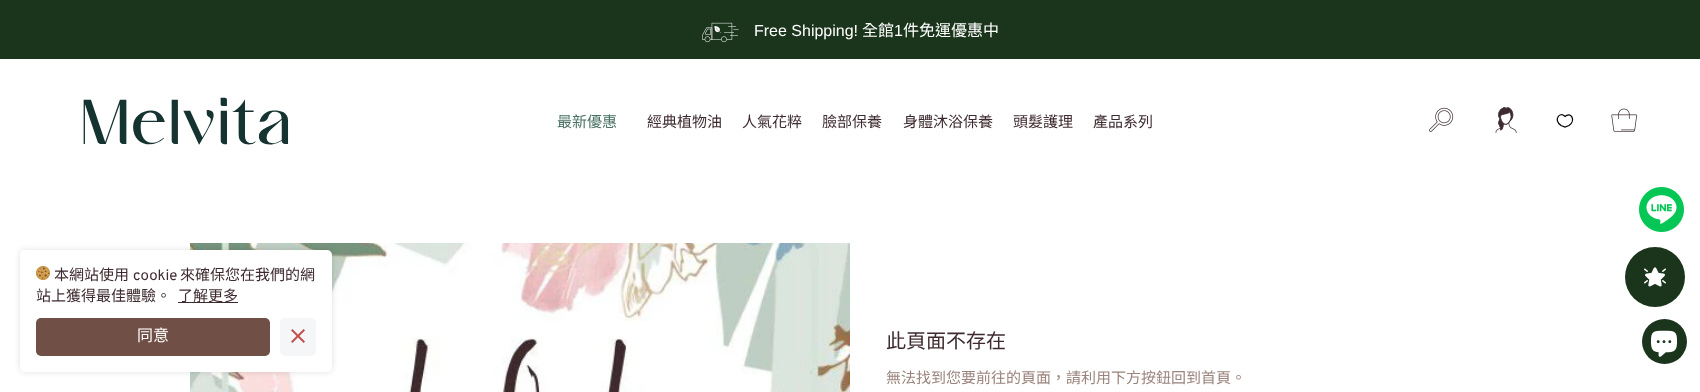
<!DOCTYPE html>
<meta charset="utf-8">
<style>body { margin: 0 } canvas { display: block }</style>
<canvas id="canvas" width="1700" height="392"></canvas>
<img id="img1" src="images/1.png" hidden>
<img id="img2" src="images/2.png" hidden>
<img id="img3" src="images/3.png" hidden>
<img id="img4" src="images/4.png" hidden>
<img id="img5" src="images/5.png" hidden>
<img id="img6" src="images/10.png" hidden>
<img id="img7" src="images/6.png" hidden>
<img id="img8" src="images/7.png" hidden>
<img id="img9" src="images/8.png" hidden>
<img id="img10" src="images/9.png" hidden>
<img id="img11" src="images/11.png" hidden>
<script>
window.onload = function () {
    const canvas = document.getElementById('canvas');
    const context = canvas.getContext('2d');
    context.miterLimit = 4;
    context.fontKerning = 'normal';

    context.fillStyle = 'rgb(255, 255, 255)';
    context.fillRect(0, 0, 1700, 392);
    context.fillStyle = 'rgb(27, 53, 28)';
    context.fillRect(0, 0, 1700, 59);
    context.drawImage(document.getElementById('img1'), 702, 22, 37, 21);
    context.drawImage(document.getElementById('img2'), 83, 97, 206, 48);
    context.drawImage(document.getElementById('img3'), 1429, 107, 25, 25);
    context.drawImage(document.getElementById('img4'), 1495, 107, 22, 26);
    context.beginPath();
    context.moveTo(1564.5, 116);
    context.lineTo(1565, 116.5);
    context.bezierCurveTo(1570.5, 111, 1576.5, 120, 1569, 125.5);
    context.lineTo(1565, 127);
    context.lineTo(1561, 125.5);
    context.bezierCurveTo(1553, 119.5, 1560, 111.5, 1564.5, 116);
    context.closePath();
    context.strokeStyle = 'rgb(0, 0, 0)';
    context.lineWidth = 1.2;
    context.stroke();
    context.drawImage(document.getElementById('img5'), 1611, 108, 27, 24);
    context.drawImage(document.getElementById('img6'), 190, 243, 660, 149);
    context.fillStyle = 'rgb(255, 255, 255)';
    context.beginPath();
    context.roundRect(20, 250, 312, 122, 5);
    context.fill();
    context.save();
    context.beginPath();
    context.moveTo(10, 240);
    context.lineTo(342, 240);
    context.lineTo(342, 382);
    context.lineTo(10, 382);
    context.closePath();
    context.moveTo(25, 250);
    context.lineTo(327, 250);
    context.bezierCurveTo(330, 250, 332, 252, 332, 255);
    context.lineTo(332, 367);
    context.bezierCurveTo(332, 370, 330, 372, 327, 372);
    context.lineTo(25, 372);
    context.bezierCurveTo(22, 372, 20, 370, 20, 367);
    context.lineTo(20, 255);
    context.bezierCurveTo(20, 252, 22, 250, 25, 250);
    context.closePath();
    context.clip('evenodd');
    context.fillStyle = 'rgba(0, 0, 0, 0.12)';
    context.filter = 'blur(3px)';
    context.beginPath();
    context.roundRect(20, 250, 312, 122, 5);
    context.fill();
    context.filter = 'none';
    context.restore();
    context.drawImage(document.getElementById('img7'), 36, 266, 14, 14);
    context.fillStyle = 'rgb(62, 43, 47)';
    context.fillRect(178, 302, 60, 1);
    context.fillStyle = 'rgb(112, 79, 70)';
    context.beginPath();
    context.roundRect(36, 318, 234, 38, 5);
    context.fill();
    context.fillStyle = 'rgb(244, 246, 248)';
    context.beginPath();
    context.roundRect(280, 318, 36, 38, 5);
    context.fill();
    context.drawImage(document.getElementById('img8'), 291, 329, 14, 14);
    context.fillStyle = 'rgb(27, 53, 28)';
    context.beginPath();
    context.arc(1655, 277, 30, 0, 2 * Math.PI);
    context.fill();
    context.drawImage(document.getElementById('img9'), 1644, 267, 22, 20);
    context.drawImage(document.getElementById('img10'), 1639, 187, 45, 45);
    context.beginPath();
    context.arc(1664.5, 341.5, 22.5, 0, 2 * Math.PI);
    context.fill();
    context.drawImage(document.getElementById('img11'), 1650, 330, 28, 27);
    context.font = '16px Liberation Sans';
    context.fillStyle = 'rgb(255, 255, 255)';
    context.fillText('Free Shipping!', 754, 36);
    context.font = '16px Noto Sans CJK TC';
    context.fillText('全館', 862, 36);
    context.font = '16px Liberation Sans';
    context.fillText('1', 894, 36);
    context.font = '16px Noto Sans CJK TC';
    context.fillText('件免運優惠中', 903, 36);
    context.font = '15px Noto Sans TC';
    context.fillStyle = 'rgb(74, 113, 101)';
    context.fillText('最新優惠', 557, 127);
    context.fillStyle = 'rgb(62, 43, 47)';
    context.fillText('經典植物油', 647, 127);
    context.fillText('人氣花粹', 742, 127);
    context.fillText('臉部保養', 822, 127);
    context.fillText('身體沐浴保養', 903, 127);
    context.fillText('頭髮護理', 1013, 127);
    context.fillText('產品系列', 1093, 127);
    context.font = '15px Noto Sans CJK TC';
    context.fillText('本網站使用', 54, 280);
    context.font = '15px Overpass';
    context.fillText('cookie', 133, 280);
    context.font = '15px Noto Sans CJK TC';
    context.fillText('來確保您在我們的網', 180, 280);
    context.fillText('站上獲得最佳體驗。', 36, 301);
    context.fillText('了解更多', 178, 301);
    context.font = '16px Noto Sans CJK TC';
    context.fillStyle = 'rgb(255, 255, 255)';
    context.fillText('同意', 137, 341);
    context.font = '20px Noto Sans TC';
    context.fillStyle = 'rgb(62, 43, 47)';
    context.fillText('此頁面不存在', 886, 348);
    context.font = '15px Noto Sans TC';
    context.fillStyle = 'rgb(155, 132, 125)';
    context.fillText('無法找到您要前往的頁面，請利用下方按鈕回到首頁。', 886, 383);
};
</script>
